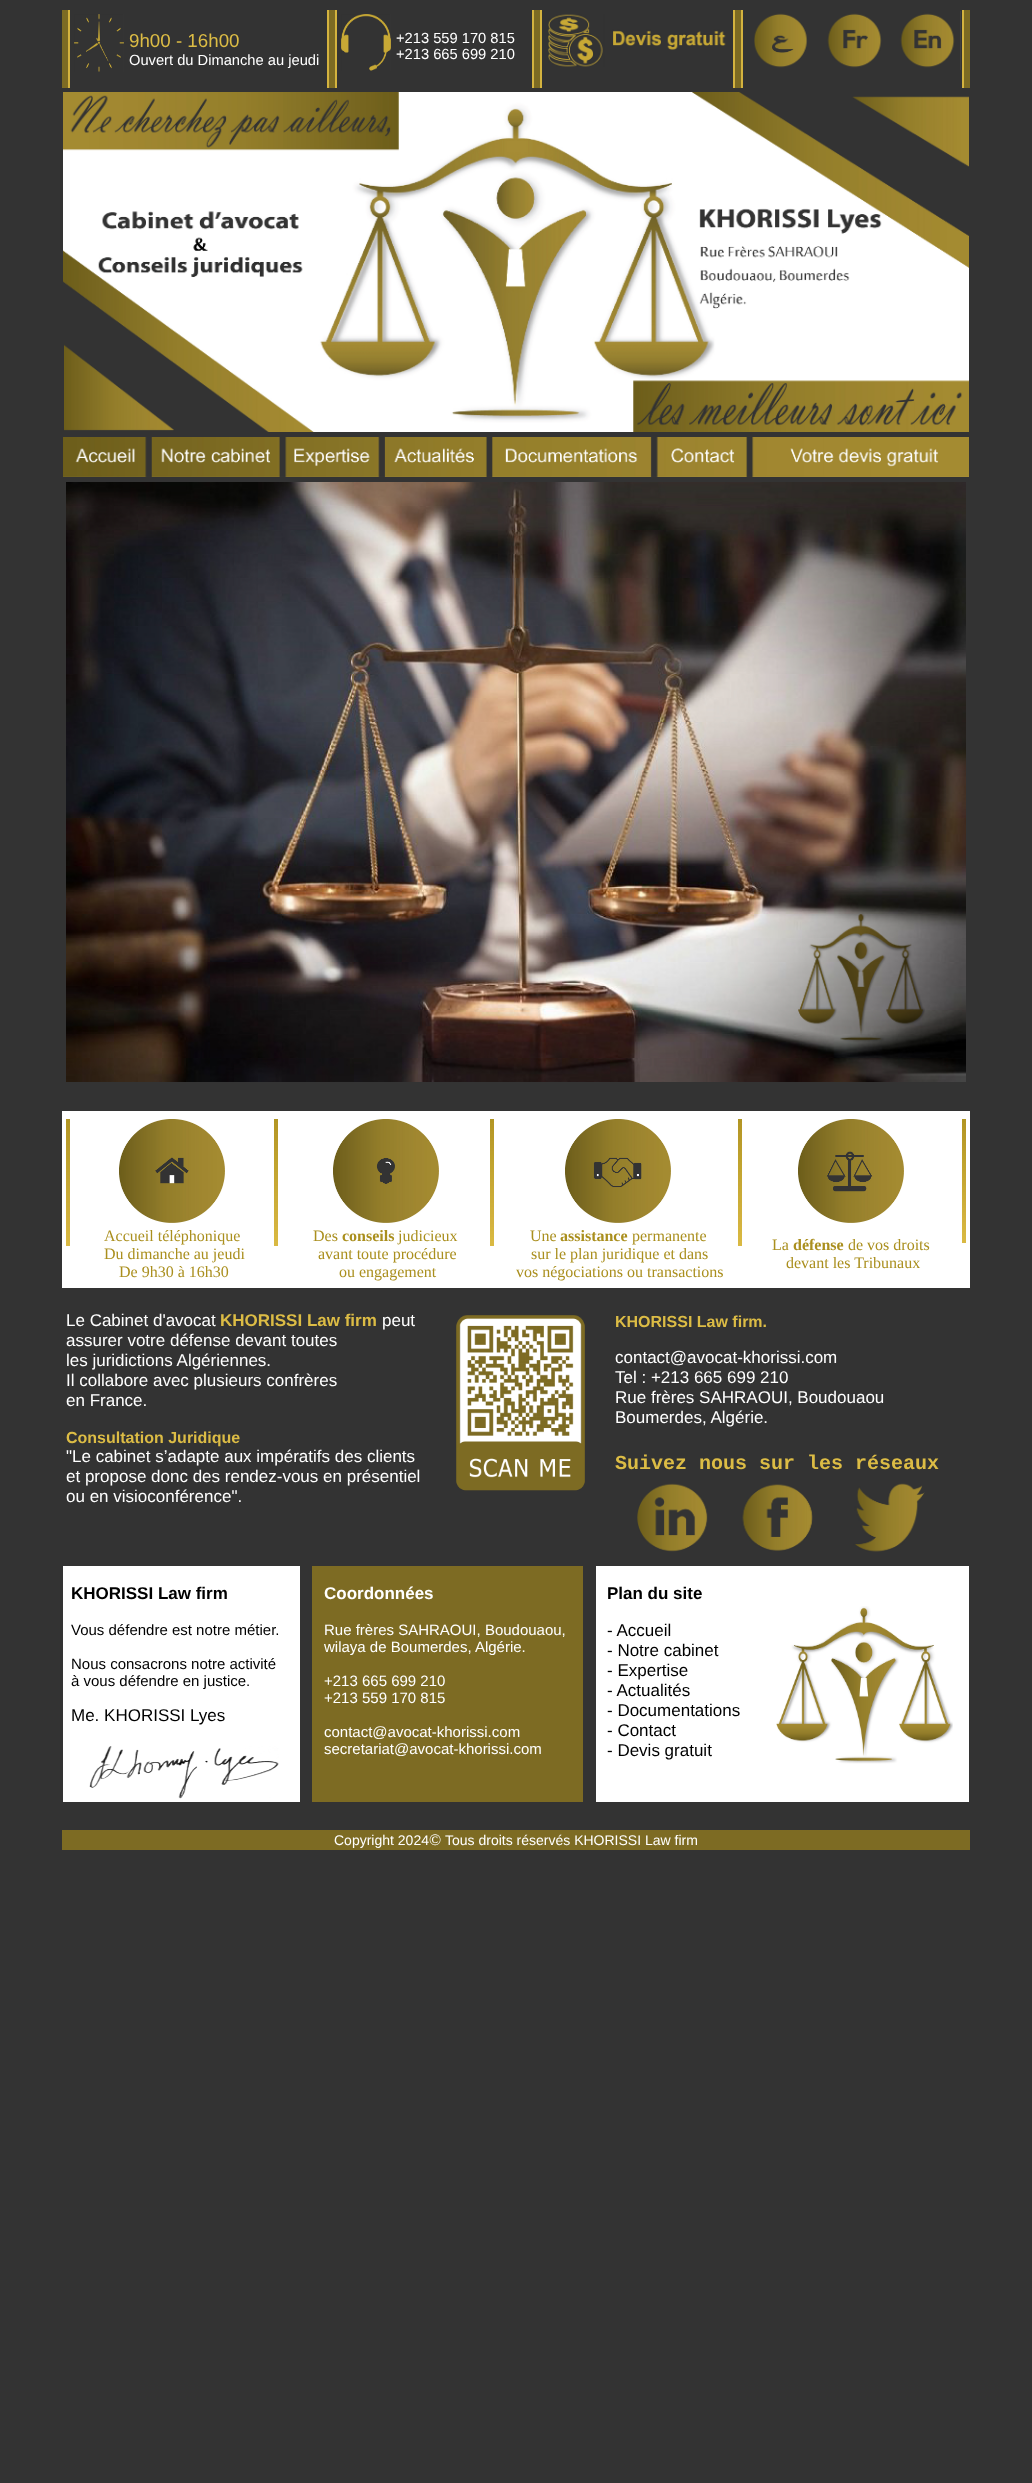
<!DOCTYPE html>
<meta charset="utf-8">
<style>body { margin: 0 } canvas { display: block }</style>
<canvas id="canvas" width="1032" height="2483"></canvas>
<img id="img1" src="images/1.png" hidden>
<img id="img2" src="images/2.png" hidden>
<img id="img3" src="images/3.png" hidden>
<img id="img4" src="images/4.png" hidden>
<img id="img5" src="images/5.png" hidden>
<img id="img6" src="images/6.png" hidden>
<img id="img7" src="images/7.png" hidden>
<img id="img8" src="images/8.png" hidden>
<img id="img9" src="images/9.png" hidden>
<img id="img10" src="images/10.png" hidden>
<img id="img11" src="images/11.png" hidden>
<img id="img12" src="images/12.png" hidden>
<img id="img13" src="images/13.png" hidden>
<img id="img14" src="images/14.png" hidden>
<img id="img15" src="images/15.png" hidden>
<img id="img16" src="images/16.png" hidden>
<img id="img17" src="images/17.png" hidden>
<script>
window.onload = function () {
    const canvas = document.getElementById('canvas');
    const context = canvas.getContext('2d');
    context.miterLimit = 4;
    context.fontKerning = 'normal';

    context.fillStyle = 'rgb(51, 51, 51)';
    context.fillRect(0, 0, 1032, 2483);
    context.fillStyle = 'rgb(212, 179, 63)';
    context.fillRect(68, 10, 896, 78);
    context.fillStyle = 'rgb(125, 107, 35)';
    context.fillRect(62, 10, 6, 78);
    context.fillStyle = 'rgb(51, 51, 51)';
    context.fillRect(70, 10, 257, 78);
    context.drawImage(document.getElementById('img1'), 74, 14, 50, 58);
    context.fillStyle = 'rgb(125, 107, 35)';
    context.fillRect(329, 10, 6, 78);
    context.fillStyle = 'rgb(51, 51, 51)';
    context.fillRect(337, 10, 195, 78);
    context.drawImage(document.getElementById('img2'), 341, 14, 50, 57);
    context.fillStyle = 'rgb(125, 107, 35)';
    context.fillRect(534, 10, 6, 78);
    context.fillStyle = 'rgb(51, 51, 51)';
    context.fillRect(542, 10, 191, 78);
    context.drawImage(document.getElementById('img3'), 548, 14, 178, 53);
    context.fillStyle = 'rgb(125, 107, 35)';
    context.fillRect(735, 10, 6, 78);
    context.fillStyle = 'rgb(51, 51, 51)';
    context.fillRect(743, 10, 219, 78);
    context.drawImage(document.getElementById('img4'), 754, 11, 207, 59);
    context.fillStyle = 'rgb(125, 107, 35)';
    context.fillRect(964, 10, 6, 78);
    context.drawImage(document.getElementById('img5'), 63, 92, 906, 340);
    context.drawImage(document.getElementById('img6'), 63, 437, 906, 40);
    context.drawImage(document.getElementById('img7'), 66, 482, 900, 600);
    context.fillStyle = 'rgb(255, 255, 255)';
    context.fillRect(62, 1111, 908, 177);
    context.drawImage(document.getElementById('img8'), 66, 1119, 4, 127);
    context.drawImage(document.getElementById('img9'), 119, 1119, 106, 104);
    context.drawImage(document.getElementById('img8'), 274, 1119, 4, 127);
    context.drawImage(document.getElementById('img10'), 333, 1119, 106, 104);
    context.drawImage(document.getElementById('img8'), 490, 1119, 4, 127);
    context.drawImage(document.getElementById('img11'), 565, 1119, 106, 104);
    context.drawImage(document.getElementById('img8'), 738, 1119, 4, 127);
    context.drawImage(document.getElementById('img12'), 798, 1119, 106, 104);
    context.drawImage(document.getElementById('img13'), 962, 1119, 4, 124);
    context.drawImage(document.getElementById('img14'), 456, 1315, 129, 176);
    context.drawImage(document.getElementById('img15'), 637, 1483, 288, 69);
    context.fillRect(63, 1566, 906, 236);
    context.fillStyle = 'rgb(51, 51, 51)';
    context.fillRect(300, 1566, 12, 236);
    context.fillStyle = 'rgb(125, 107, 35)';
    context.fillRect(312, 1566, 271, 236);
    context.fillStyle = 'rgb(51, 51, 51)';
    context.fillRect(583, 1566, 13, 236);
    context.drawImage(document.getElementById('img16'), 776, 1606, 177, 158);
    context.drawImage(document.getElementById('img17'), 89, 1746, 190, 53);
    context.fillStyle = 'rgb(125, 107, 35)';
    context.fillRect(62, 1830, 908, 20);
    context.font = '18.75px Liberation Sans';
    context.fillStyle = 'rgb(220, 188, 69)';
    context.fillText('9h00 - 16h00', 129, 47);
    context.font = '14.7px Liberation Sans';
    context.fillStyle = 'rgb(255, 255, 255)';
    context.fillText('Ouvert du Dimanche au jeudi', 129, 65);
    context.fillText('+213 559 170 815', 396, 43);
    context.fillText('+213 665 699 210', 396, 59);
    context.font = '16px Liberation Serif';
    context.fillStyle = 'rgb(170, 143, 30)';
    context.fillText('Accueil téléphonique', 104, 1241);
    context.fillText('Du dimanche au jeudi', 104, 1259);
    context.fillText('De 9h30 à 16h30', 119, 1277);
    context.fillText('Des', 313, 1241);
    context.font = 'bold 16px Liberation Serif';
    context.fillText('conseils', 342, 1241);
    context.font = '16px Liberation Serif';
    context.fillText('judicieux', 398, 1241);
    context.fillText('avant toute procédure', 318, 1259);
    context.fillText('ou engagement', 339, 1277);
    context.fillText('Une', 530, 1241);
    context.font = 'bold 16px Liberation Serif';
    context.fillText('assistance', 560, 1241);
    context.font = '16px Liberation Serif';
    context.fillText('permanente', 632, 1241);
    context.fillText('sur le plan juridique et dans', 531, 1259);
    context.fillText('vos négociations ou transactions', 516, 1277);
    context.fillText('La', 772, 1250);
    context.font = 'bold 16px Liberation Serif';
    context.fillText('défense', 793, 1250);
    context.font = '16px Liberation Serif';
    context.fillText('de vos droits', 848, 1250);
    context.fillText('devant les Tribunaux', 786, 1268);
    context.font = '17px Liberation Sans';
    context.fillStyle = 'rgb(255, 255, 255)';
    context.fillText('Le Cabinet d\'avocat', 66, 1326);
    context.font = 'bold 17px Liberation Sans';
    context.fillStyle = 'rgb(220, 188, 69)';
    context.fillText('KHORISSI Law firm', 220, 1326);
    context.font = '17px Liberation Sans';
    context.fillStyle = 'rgb(255, 255, 255)';
    context.fillText('peut', 382, 1326);
    context.fillText('assurer votre défense devant toutes', 66, 1346);
    context.fillText('les juridictions Algériennes.', 66, 1366);
    context.fillText('Il collabore avec plusieurs confrères', 66, 1386);
    context.fillText('en France.', 66, 1406);
    context.font = 'bold 16px Liberation Sans';
    context.fillStyle = 'rgb(220, 188, 69)';
    context.fillText('Consultation Juridique', 66, 1443);
    context.font = '17px Liberation Sans';
    context.fillStyle = 'rgb(255, 255, 255)';
    context.fillText('"Le cabinet s’adapte aux impératifs des clients', 66, 1462);
    context.fillText('et propose donc des rendez-vous en présentiel', 66, 1482);
    context.fillText('ou en visioconférence".', 66, 1502);
    context.font = 'bold 16px Liberation Sans';
    context.fillStyle = 'rgb(220, 188, 69)';
    context.fillText('KHORISSI Law firm.', 615, 1327);
    context.font = '17px Liberation Sans';
    context.fillStyle = 'rgb(255, 255, 255)';
    context.fillText('contact@avocat-khorissi.com', 615, 1363);
    context.fillText('Tel : +213 665 699 210', 615, 1383);
    context.fillText('Rue frères SAHRAOUI, Boudouaou', 615, 1403);
    context.fillText('Boumerdes, Algérie.', 615, 1423);
    context.font = 'bold 20px Liberation Mono';
    context.fillStyle = 'rgb(220, 188, 69)';
    context.fillText('Suivez nous sur les réseaux', 615, 1469);
    context.font = 'bold 17px Liberation Sans';
    context.fillStyle = 'rgb(0, 0, 0)';
    context.fillText('KHORISSI Law firm', 71, 1599);
    context.font = '15px Liberation Sans';
    context.fillText('Vous défendre est notre métier.', 71, 1635);
    context.fillText('Nous consacrons notre activité', 71, 1669);
    context.fillText('à vous défendre en justice.', 71, 1686);
    context.font = '17px Liberation Sans';
    context.fillText('Me. KHORISSI Lyes', 71, 1721);
    context.font = 'bold 17px Liberation Sans';
    context.fillStyle = 'rgb(255, 255, 255)';
    context.fillText('Coordonnées', 324, 1599);
    context.font = '15px Liberation Sans';
    context.fillText('Rue frères SAHRAOUI, Boudouaou,', 324, 1635);
    context.fillText('wilaya de Boumerdes, Algérie.', 324, 1652);
    context.fillText('+213 665 699 210', 324, 1686);
    context.fillText('+213 559 170 815', 324, 1703);
    context.fillText('contact@avocat-khorissi.com', 324, 1737);
    context.fillText('secretariat@avocat-khorissi.com', 324, 1754);
    context.font = 'bold 17px Liberation Sans';
    context.fillStyle = 'rgb(0, 0, 0)';
    context.fillText('Plan du site', 607, 1599);
    context.font = '17px Liberation Sans';
    context.fillText('- Accueil', 607, 1636);
    context.fillText('- Notre cabinet', 607, 1656);
    context.fillText('- Expertise', 607, 1676);
    context.fillText('- Actualités', 607, 1696);
    context.fillText('- Documentations', 607, 1716);
    context.fillText('- Contact', 607, 1736);
    context.fillText('- Devis gratuit', 607, 1756);
    context.font = '14px Liberation Sans';
    context.fillStyle = 'rgb(255, 255, 255)';
    context.fillText('Copyright 2024', 334, 1845);
    context.font = '16px Liberation Serif';
    context.fillText('©', 429, 1845);
    context.font = '14px Liberation Sans';
    context.fillText('Tous droits réservés KHORISSI Law firm', 445, 1845);
};
</script>
